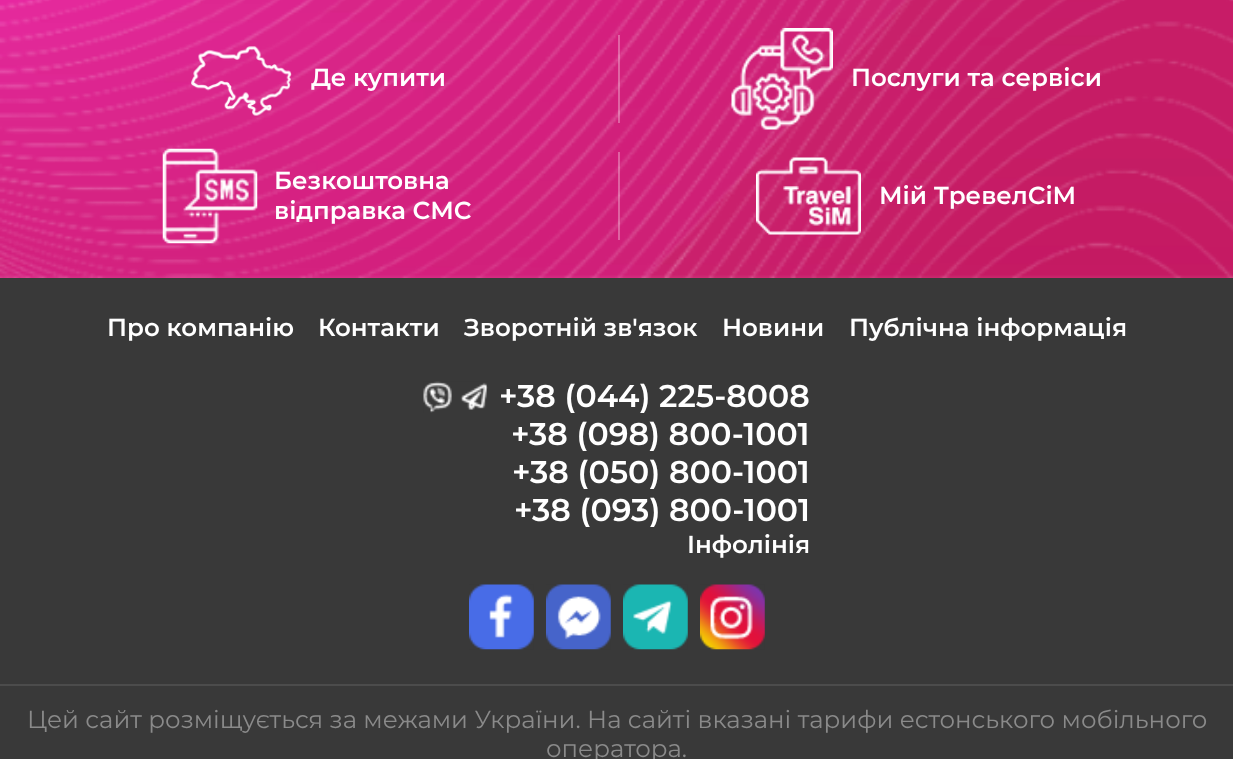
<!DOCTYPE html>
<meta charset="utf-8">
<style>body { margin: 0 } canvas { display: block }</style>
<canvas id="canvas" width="1233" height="759"></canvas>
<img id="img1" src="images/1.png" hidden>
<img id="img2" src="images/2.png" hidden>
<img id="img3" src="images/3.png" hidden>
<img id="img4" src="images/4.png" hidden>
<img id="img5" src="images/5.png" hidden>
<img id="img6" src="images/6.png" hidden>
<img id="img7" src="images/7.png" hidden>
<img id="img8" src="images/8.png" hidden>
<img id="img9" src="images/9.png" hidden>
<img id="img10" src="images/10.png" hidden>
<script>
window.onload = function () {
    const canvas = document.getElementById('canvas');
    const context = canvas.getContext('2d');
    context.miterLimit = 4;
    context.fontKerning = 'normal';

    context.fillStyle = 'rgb(255, 255, 255)';
    context.fillRect(0, 0, 1233, 759);
    context.drawImage(document.getElementById('img1'), 0, 0, 1233, 278);
    context.drawImage(document.getElementById('img2'), 191, 46, 101, 70);
    context.fillStyle = 'rgba(255, 255, 255, 0.3)';
    context.fillRect(618, 35, 2, 88);
    context.drawImage(document.getElementById('img3'), 731, 28, 102, 102);
    context.drawImage(document.getElementById('img4'), 162, 148, 96, 96);
    context.fillRect(618, 152, 2, 88);
    context.drawImage(document.getElementById('img5'), 756, 157, 105, 78);
    context.fillStyle = 'rgb(57, 57, 57)';
    context.fillRect(0, 278, 1233, 481);
    context.drawImage(document.getElementById('img6'), 423, 381, 65, 32);
    context.drawImage(document.getElementById('img7'), 469, 584, 65, 66);
    context.drawImage(document.getElementById('img8'), 546, 584, 65, 66);
    context.drawImage(document.getElementById('img9'), 623, 584, 65, 66);
    context.drawImage(document.getElementById('img10'), 700, 584, 65, 66);
    context.fillStyle = 'rgb(76, 76, 76)';
    context.fillRect(0, 684, 1233, 2);
    context.font = '600 24.5px Montserrat';
    context.fillStyle = 'rgb(255, 255, 255)';
    context.fillText('Де купити', 311, 86);
    context.fillText('Послуги та сервіси', 851, 86);
    context.fillText('Безкоштовна', 274, 189);
    context.fillText('відправка СМС', 274, 219);
    context.fillText('Мій ТревелСіМ', 879, 204);
    context.fillText('Про компанію', 107, 336);
    context.fillText('Контакти', 318, 336);
    context.fillText('Зворотній зв\'язок', 464, 336);
    context.fillText('Новини', 722, 336);
    context.fillText('Публічна інформація', 849, 336);
    context.font = '600 31.5px Montserrat';
    context.fillText('+38 (044) 225-8008', 499, 407);
    context.fillText('+38 (098) 800-1001', 511, 445);
    context.fillText('+38 (050) 800-1001', 512, 483);
    context.fillText('+38 (093) 800-1001', 514, 521);
    context.font = '600 24.5px Montserrat';
    context.fillText('Інфолінія', 687, 553);
    context.font = '24.5px Montserrat';
    context.fillStyle = 'rgb(138, 138, 138)';
    context.fillText('Цей сайт розміщується за межами України. На сайті вказані тарифи естонського мобільного', 27, 728);
    context.fillText('оператора.', 546, 757);
};
</script>
